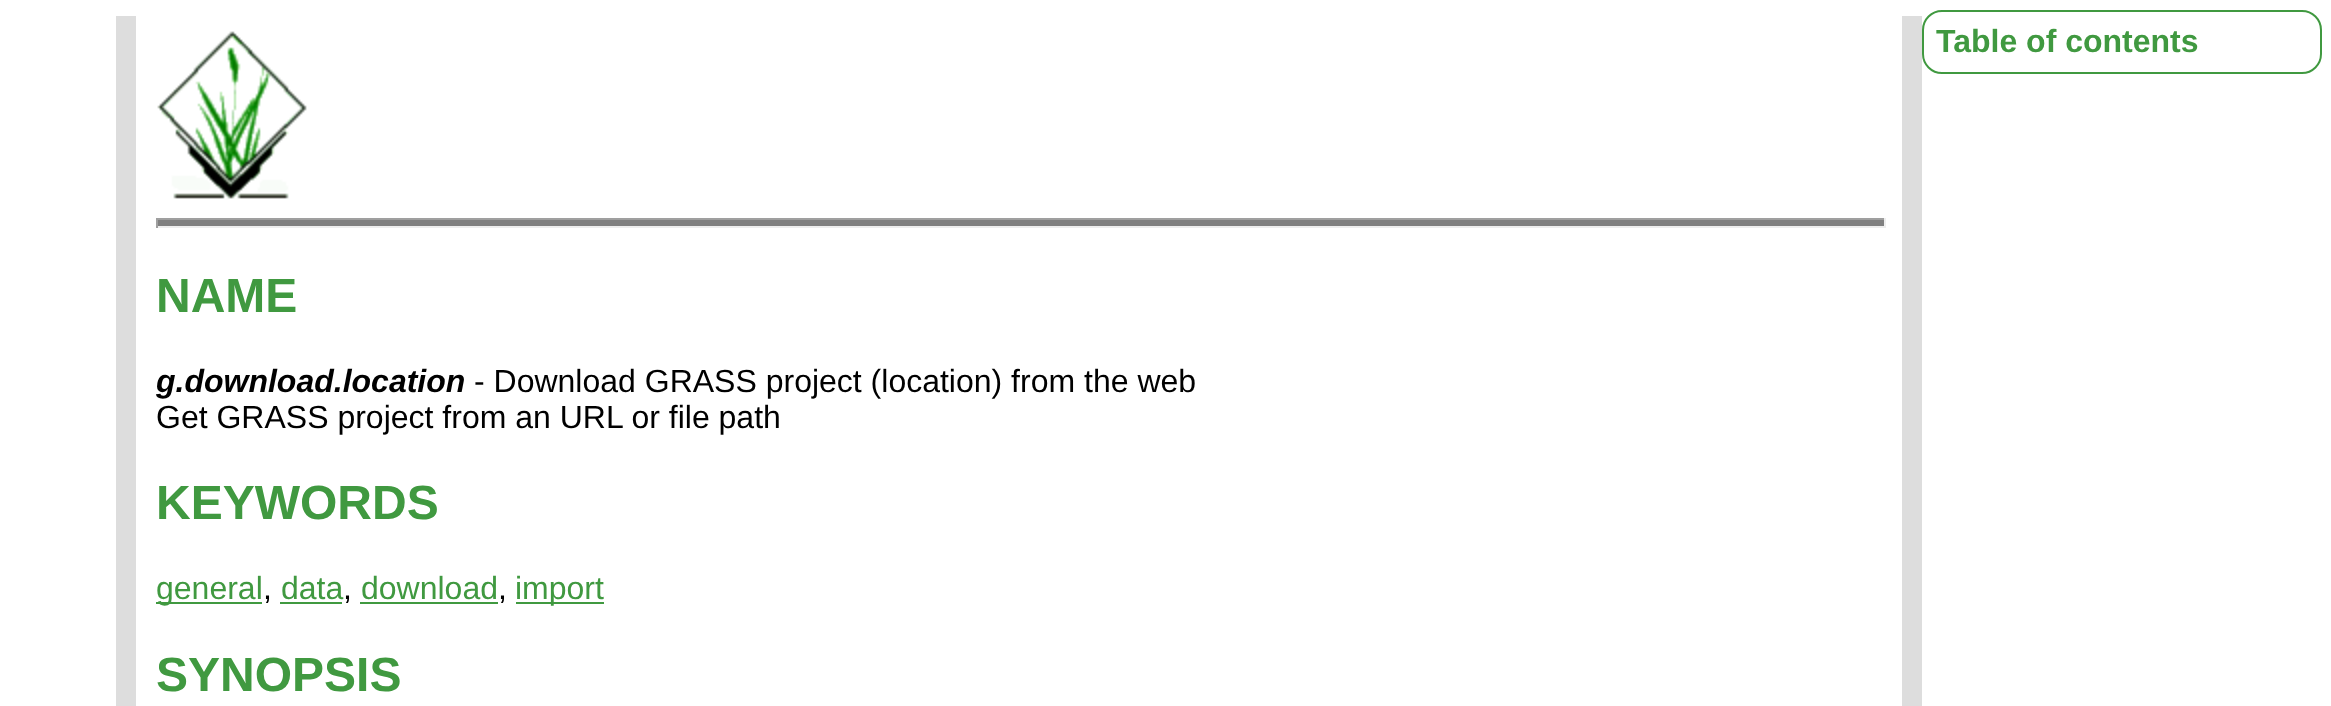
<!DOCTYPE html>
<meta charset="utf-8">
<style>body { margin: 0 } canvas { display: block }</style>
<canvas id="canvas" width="2331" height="706"></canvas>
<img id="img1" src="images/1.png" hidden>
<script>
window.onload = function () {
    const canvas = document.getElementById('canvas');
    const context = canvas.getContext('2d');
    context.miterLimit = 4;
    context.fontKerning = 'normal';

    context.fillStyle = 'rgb(255, 255, 255)';
    context.fillRect(0, 0, 2331, 706);
    context.fillStyle = 'rgb(221, 221, 221)';
    context.fillRect(1902, 16, 20, 690);
    context.fillRect(116, 16, 20, 690);
    context.drawImage(document.getElementById('img1'), 157, 31, 150, 168);
    context.beginPath();
    context.roundRect(1923, 11, 398, 62, 19);
    context.strokeStyle = 'rgb(64, 153, 64)';
    context.lineWidth = 2;
    context.stroke();
    context.fillStyle = 'rgb(128, 128, 128)';
    context.fillRect(158, 220, 1726, 6);
    context.fillStyle = 'rgb(159, 159, 159)';
    context.fillRect(156, 218, 1730, 2);
    context.fillStyle = 'rgb(238, 238, 238)';
    context.fillRect(1884, 218, 2, 10);
    context.fillRect(156, 226, 1730, 2);
    context.fillStyle = 'rgb(159, 159, 159)';
    context.fillRect(156, 218, 2, 10);
    context.fillStyle = 'rgb(64, 153, 64)';
    context.fillRect(156, 602, 106, 2);
    context.fillRect(280, 602, 62, 2);
    context.fillRect(360, 602, 138, 2);
    context.fillRect(516, 602, 88, 2);
    context.font = 'bold 32px Liberation Sans';
    context.fillText('Table of contents', 1936, 52);
    context.font = 'bold 48px Liberation Sans';
    context.fillText('NAME', 156, 312);
    context.font = 'italic bold 32px Liberation Sans';
    context.fillStyle = 'rgb(0, 0, 0)';
    context.fillText('g.download.location', 156, 392);
    context.font = '32px Liberation Sans';
    context.fillText('- Download GRASS project (location) from the web', 474, 392);
    context.fillText('Get GRASS project from an URL or file path', 156, 428);
    context.font = 'bold 48px Liberation Sans';
    context.fillStyle = 'rgb(64, 153, 64)';
    context.fillText('KEYWORDS', 156, 519);
    context.font = '32px Liberation Sans';
    context.fillText('general', 156, 599);
    context.fillStyle = 'rgb(0, 0, 0)';
    context.fillText(',', 263, 599);
    context.fillStyle = 'rgb(64, 153, 64)';
    context.fillText('data', 281, 599);
    context.fillStyle = 'rgb(0, 0, 0)';
    context.fillText(',', 343, 599);
    context.fillStyle = 'rgb(64, 153, 64)';
    context.fillText('download', 361, 599);
    context.fillStyle = 'rgb(0, 0, 0)';
    context.fillText(',', 498, 599);
    context.fillStyle = 'rgb(64, 153, 64)';
    context.fillText('import', 515, 599);
    context.font = 'bold 48px Liberation Sans';
    context.fillText('SYNOPSIS', 156, 691);
};
</script>
